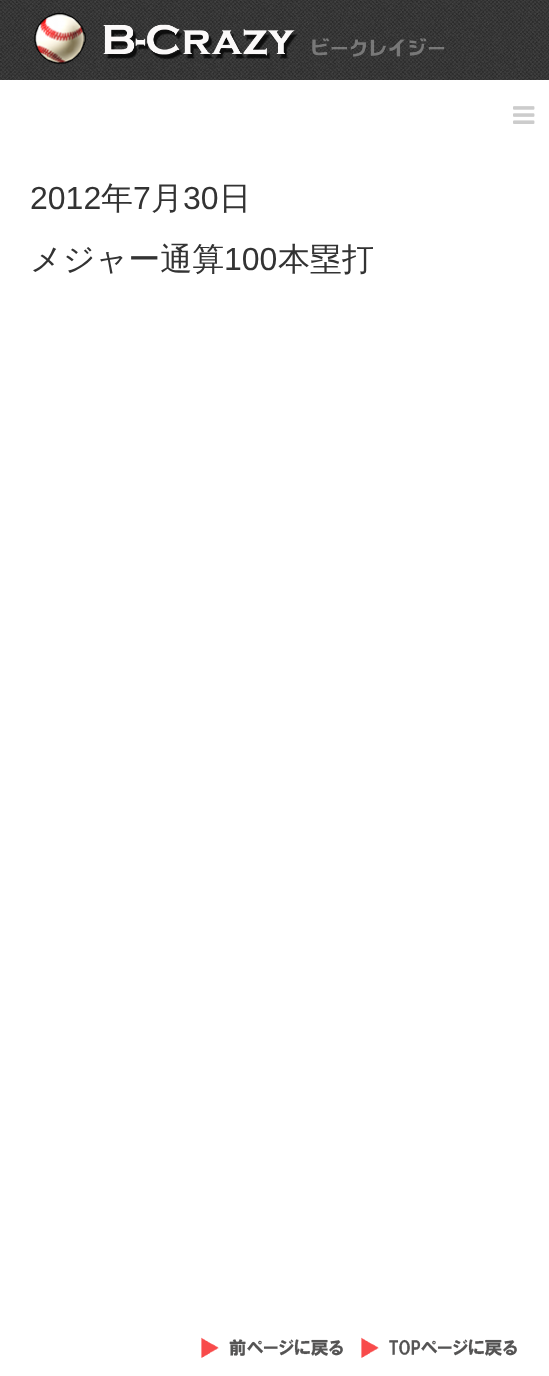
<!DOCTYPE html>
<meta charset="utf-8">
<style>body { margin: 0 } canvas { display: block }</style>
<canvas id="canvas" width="549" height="1376"></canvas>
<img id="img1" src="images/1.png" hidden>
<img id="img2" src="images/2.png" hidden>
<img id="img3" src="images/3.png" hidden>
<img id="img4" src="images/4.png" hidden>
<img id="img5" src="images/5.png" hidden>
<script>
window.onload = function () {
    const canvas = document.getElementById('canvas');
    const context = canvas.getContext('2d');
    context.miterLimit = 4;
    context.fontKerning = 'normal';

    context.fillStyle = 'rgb(255, 255, 255)';
    context.fillRect(0, 0, 549, 1376);
    context.drawImage(document.getElementById('img1'), 0, 0, 549, 80);
    context.drawImage(document.getElementById('img2'), 34, 13, 411, 51);
    context.drawImage(document.getElementById('img3'), 513, 106, 22, 18);
    context.drawImage(document.getElementById('img4'), 201, 1337, 142, 21);
    context.drawImage(document.getElementById('img5'), 361, 1337, 156, 21);
    context.font = '32px Liberation Sans';
    context.fillStyle = 'rgb(51, 51, 51)';
    context.fillText('2012', 30, 209);
    context.font = '500 32px WenQuanYi Zen Hei';
    context.fillText('年', 101, 209);
    context.font = '32px Liberation Sans';
    context.fillText('7', 133, 209);
    context.font = '500 32px WenQuanYi Zen Hei';
    context.fillText('月', 151, 209);
    context.font = '32px Liberation Sans';
    context.fillText('30', 183, 209);
    context.font = '500 32px WenQuanYi Zen Hei';
    context.fillText('日', 219, 209);
    context.fillText('メジャー通算', 30, 270);
    context.font = '32px Liberation Sans';
    context.fillText('100', 224, 270);
    context.font = '500 32px WenQuanYi Zen Hei';
    context.fillText('本塁打', 278, 270);
};
</script>
